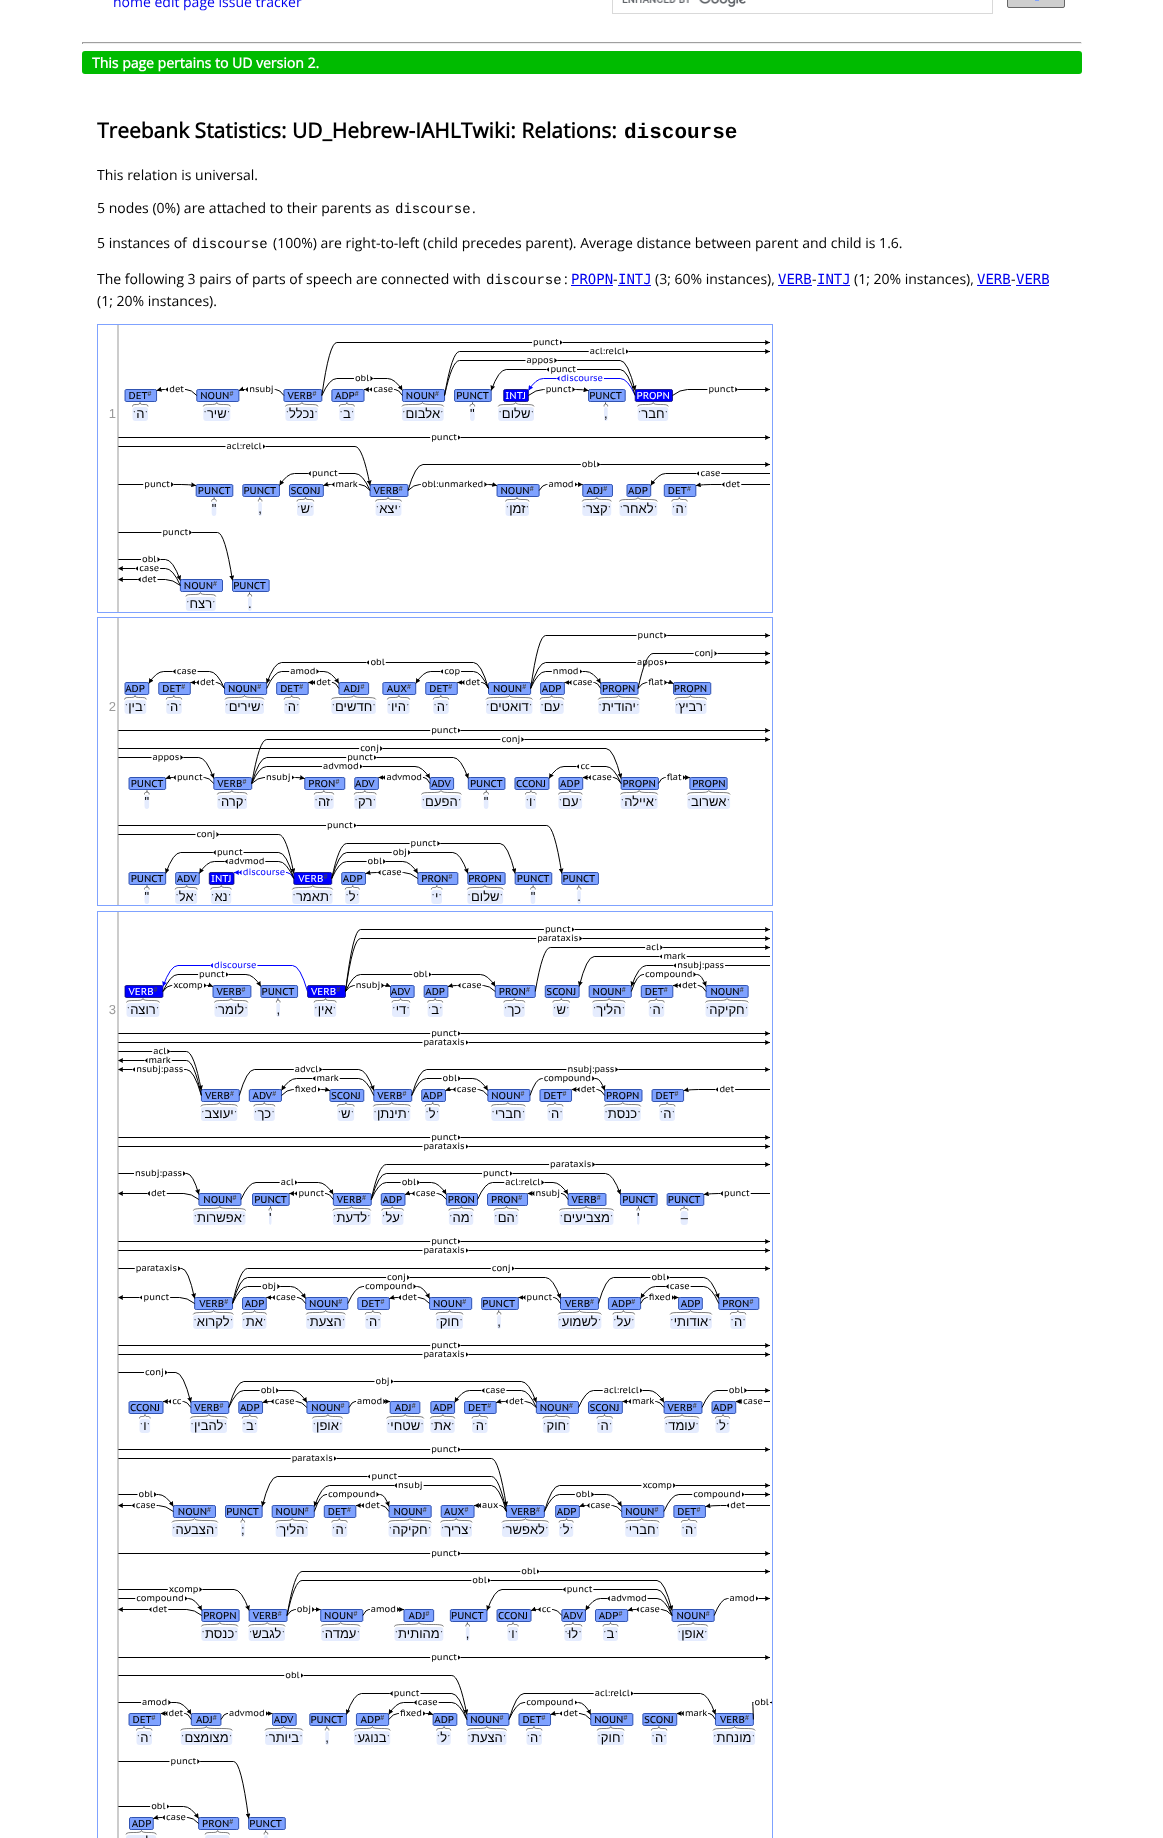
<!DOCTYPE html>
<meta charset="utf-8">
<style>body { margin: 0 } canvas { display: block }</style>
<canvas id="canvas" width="1163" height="1838"></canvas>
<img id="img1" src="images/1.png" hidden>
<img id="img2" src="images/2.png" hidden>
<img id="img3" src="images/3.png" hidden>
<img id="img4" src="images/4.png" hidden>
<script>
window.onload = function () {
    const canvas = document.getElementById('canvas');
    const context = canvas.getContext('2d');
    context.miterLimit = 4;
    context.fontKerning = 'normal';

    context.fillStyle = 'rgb(255, 255, 255)';
    context.fillRect(0, 0, 1163, 1838);
    context.strokeStyle = 'rgb(217, 217, 217)';
    context.strokeRect(612.5, -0.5, 380, 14);
    context.drawImage(document.getElementById('img1'), 622, 0, 124, 7);
    context.fillStyle = 'rgb(206, 206, 206)';
    context.beginPath();
    context.roundRect(1007.5, -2.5, 57, 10, 1.5);
    context.fill();
    context.strokeStyle = 'rgb(102, 102, 102)';
    context.stroke();
    context.strokeStyle = 'rgb(127, 162, 255)';
    context.strokeRect(1035.5, -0.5, 3, 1);
    context.fillStyle = 'rgb(159, 159, 159)';
    context.fillRect(82, 42, 1000, 1);
    context.fillStyle = 'rgb(238, 238, 238)';
    context.fillRect(1081, 42, 1, 2);
    context.fillRect(82, 43, 1000, 1);
    context.fillStyle = 'rgb(159, 159, 159)';
    context.fillRect(82, 42, 1, 2);
    context.fillStyle = 'rgb(0, 187, 0)';
    context.beginPath();
    context.roundRect(82, 51, 1000, 23, 3);
    context.fill();
    context.fillStyle = 'rgb(0, 0, 238)';
    context.fillRect(571, 285, 42, 1);
    context.fillRect(618, 285, 33, 1);
    context.fillRect(778, 285, 34, 1);
    context.fillRect(817, 285, 33, 1);
    context.fillRect(977, 285, 34, 1);
    context.fillRect(1016, 285, 33, 1);
    context.strokeRect(97.5, 324.5, 675, 288);
    context.drawImage(document.getElementById('img2'), 109, 325, 661, 287);
    context.strokeRect(97.5, 617.5, 675, 288);
    context.drawImage(document.getElementById('img3'), 109, 618, 661, 287);
    context.strokeRect(97.5, 911.5, 675, 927);
    context.drawImage(document.getElementById('img4'), 109, 912, 663, 926);
    context.font = '14px Open Sans';
    context.fillText('home edit page issue tracker', 113, 7);
    context.font = 'bold 14px Open Sans';
    context.fillStyle = 'rgb(255, 255, 255)';
    context.fillText('This page pertains to UD version 2.', 92, 68);
    context.font = 'bold 21px Open Sans';
    context.fillStyle = 'rgb(0, 0, 0)';
    context.fillText('Treebank Statistics: UD_Hebrew-IAHLTwiki: Relations:', 97, 138);
    context.font = 'bold 21px Liberation Mono';
    context.fillText('discourse', 624, 138);
    context.font = '14px Open Sans';
    context.fillText('This relation is universal.', 97, 180);
    context.fillText('5 nodes (0%) are attached to their parents as', 97, 213);
    context.font = '14px Liberation Mono';
    context.fillText('discourse', 395, 213);
    context.font = '14px Open Sans';
    context.fillText('.', 472, 213);
    context.fillText('5 instances of', 97, 248);
    context.font = '14px Liberation Mono';
    context.fillText('discourse', 192, 248);
    context.font = '14px Open Sans';
    context.fillText('(100%) are right-to-left (child precedes parent). Average distance between parent and child is 1.6.', 273, 248);
    context.fillText('The following 3 pairs of parts of speech are connected with', 97, 284);
    context.font = '14px Liberation Mono';
    context.fillText('discourse', 486, 284);
    context.font = '14px Open Sans';
    context.fillText(':', 564, 284);
    context.font = '14px DejaVu Sans Mono';
    context.fillStyle = 'rgb(0, 0, 238)';
    context.fillText('PROPN', 571, 284);
    context.font = '14px Open Sans';
    context.fillStyle = 'rgb(0, 0, 0)';
    context.fillText('-', 613, 284);
    context.font = '14px DejaVu Sans Mono';
    context.fillStyle = 'rgb(0, 0, 238)';
    context.fillText('INTJ', 618, 284);
    context.font = '14px Open Sans';
    context.fillStyle = 'rgb(0, 0, 0)';
    context.fillText('(3; 60% instances),', 655, 284);
    context.font = '14px DejaVu Sans Mono';
    context.fillStyle = 'rgb(0, 0, 238)';
    context.fillText('VERB', 778, 284);
    context.font = '14px Open Sans';
    context.fillStyle = 'rgb(0, 0, 0)';
    context.fillText('-', 812, 284);
    context.font = '14px DejaVu Sans Mono';
    context.fillStyle = 'rgb(0, 0, 238)';
    context.fillText('INTJ', 817, 284);
    context.font = '14px Open Sans';
    context.fillStyle = 'rgb(0, 0, 0)';
    context.fillText('(1; 20% instances),', 854, 284);
    context.font = '14px DejaVu Sans Mono';
    context.fillStyle = 'rgb(0, 0, 238)';
    context.fillText('VERB', 977, 284);
    context.font = '14px Open Sans';
    context.fillStyle = 'rgb(0, 0, 0)';
    context.fillText('-', 1011, 284);
    context.font = '14px DejaVu Sans Mono';
    context.fillStyle = 'rgb(0, 0, 238)';
    context.fillText('VERB', 1016, 284);
    context.font = '14px Open Sans';
    context.fillStyle = 'rgb(0, 0, 0)';
    context.fillText('(1; 20% instances).', 97, 306);
};
</script>
